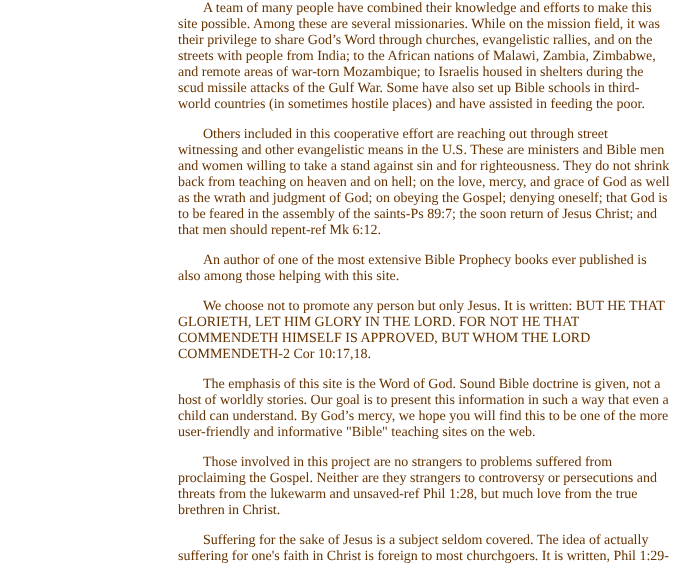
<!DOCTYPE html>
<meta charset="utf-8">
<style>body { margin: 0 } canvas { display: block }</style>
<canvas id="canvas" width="678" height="571"></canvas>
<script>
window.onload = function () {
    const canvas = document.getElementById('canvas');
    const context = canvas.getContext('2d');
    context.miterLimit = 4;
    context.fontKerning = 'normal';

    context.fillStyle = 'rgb(255, 255, 255)';
    context.fillRect(0, 0, 678, 571);
    context.font = '14px Liberation Serif';
    context.fillStyle = 'rgb(102, 51, 0)';
    context.fillText('A team of many people have combined their knowledge and efforts to make this', 203, 12);
    context.fillText('site possible. Among these are several missionaries. While on the mission field, it was', 178, 28);
    context.fillText('their privilege to share God’s Word through churches, evangelistic rallies, and on the', 178, 44);
    context.fillText('streets with people from India; to the African nations of Malawi, Zambia, Zimbabwe,', 178, 60);
    context.fillText('and remote areas of war-torn Mozambique; to Israelis housed in shelters during the', 178, 76);
    context.fillText('scud missile attacks of the Gulf War. Some have also set up Bible schools in third-', 178, 92);
    context.fillText('world countries (in sometimes hostile places) and have assisted in feeding the poor.', 178, 108);
    context.fillText('Others included in this cooperative effort are reaching out through street', 203, 138);
    context.fillText('witnessing and other evangelistic means in the U.S. These are ministers and Bible men', 178, 154);
    context.fillText('and women willing to take a stand against sin and for righteousness. They do not shrink', 178, 170);
    context.fillText('back from teaching on heaven and on hell; on the love, mercy, and grace of God as well', 178, 186);
    context.fillText('as the wrath and judgment of God; on obeying the Gospel; denying oneself; that God is', 178, 202);
    context.fillText('to be feared in the assembly of the saints-Ps 89:7; the soon return of Jesus Christ; and', 178, 218);
    context.fillText('that men should repent-ref Mk 6:12.', 178, 234);
    context.fillText('An author of one of the most extensive Bible Prophecy books ever published is', 203, 264);
    context.fillText('also among those helping with this site.', 178, 280);
    context.fillText('We choose not to promote any person but only Jesus. It is written: BUT HE THAT', 203, 310);
    context.fillText('GLORIETH, LET HIM GLORY IN THE LORD. FOR NOT HE THAT', 178, 326);
    context.fillText('COMMENDETH HIMSELF IS APPROVED, BUT WHOM THE LORD', 178, 342);
    context.fillText('COMMENDETH-2 Cor 10:17,18.', 178, 358);
    context.fillText('The emphasis of this site is the Word of God. Sound Bible doctrine is given, not a', 203, 388);
    context.fillText('host of worldly stories. Our goal is to present this information in such a way that even a', 178, 404);
    context.fillText('child can understand. By God’s mercy, we hope you will find this to be one of the more', 178, 420);
    context.fillText('user-friendly and informative "Bible" teaching sites on the web.', 178, 436);
    context.fillText('Those involved in this project are no strangers to problems suffered from', 203, 466);
    context.fillText('proclaiming the Gospel. Neither are they strangers to controversy or persecutions and', 178, 482);
    context.fillText('threats from the lukewarm and unsaved-ref Phil 1:28, but much love from the true', 178, 498);
    context.fillText('brethren in Christ.', 178, 514);
    context.fillText('Suffering for the sake of Jesus is a subject seldom covered. The idea of actually', 203, 544);
    context.fillText('suffering for one\'s faith in Christ is foreign to most churchgoers. It is written, Phil 1:29-', 178, 560);
};
</script>
